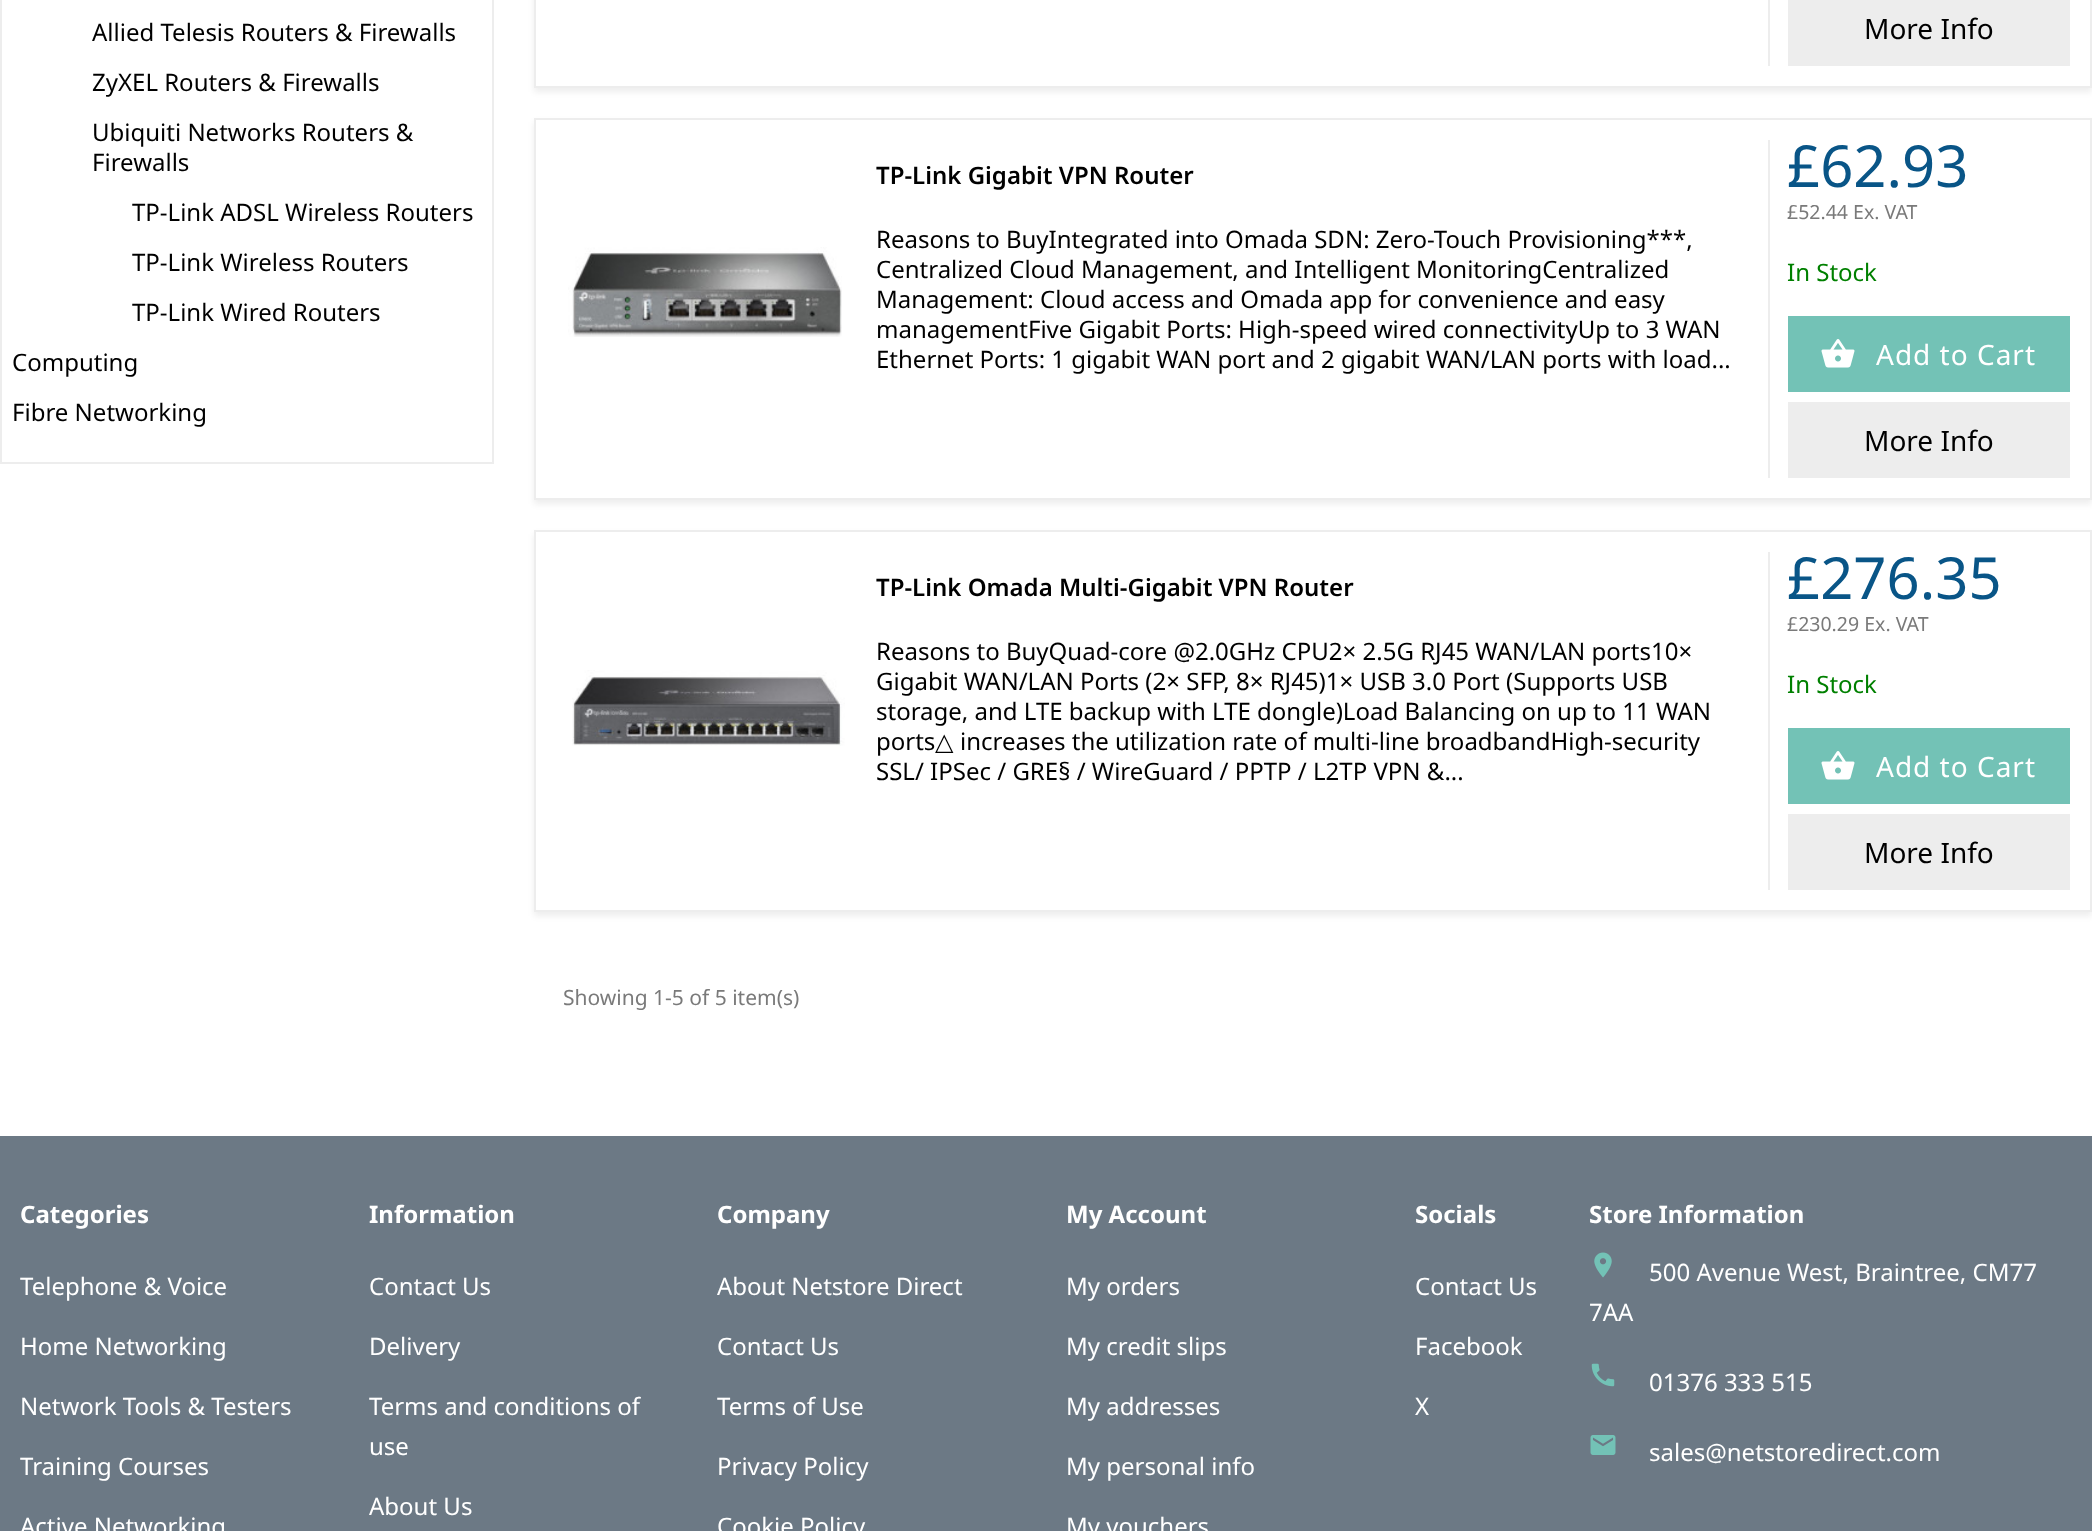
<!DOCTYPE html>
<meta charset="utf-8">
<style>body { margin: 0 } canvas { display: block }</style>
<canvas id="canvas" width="2092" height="1531"></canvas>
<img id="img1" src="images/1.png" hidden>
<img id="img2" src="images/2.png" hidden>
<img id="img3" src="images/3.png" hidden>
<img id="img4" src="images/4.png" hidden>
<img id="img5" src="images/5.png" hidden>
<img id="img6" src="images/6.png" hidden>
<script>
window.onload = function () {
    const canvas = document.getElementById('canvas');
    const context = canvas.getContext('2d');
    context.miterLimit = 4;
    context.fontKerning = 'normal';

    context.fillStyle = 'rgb(255, 255, 255)';
    context.fillRect(0, 0, 2092, 1531);
    context.strokeStyle = 'rgb(237, 237, 237)';
    context.lineWidth = 2;
    context.strokeRect(1, -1, 492, 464);
    context.save();
    context.beginPath();
    context.moveTo(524, 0);
    context.lineTo(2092, 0);
    context.lineTo(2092, 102);
    context.lineTo(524, 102);
    context.closePath();
    context.moveTo(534, -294);
    context.lineTo(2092, -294);
    context.lineTo(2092, 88);
    context.lineTo(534, 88);
    context.closePath();
    context.clip('evenodd');
    context.fillStyle = 'rgba(0, 0, 0, 0.07)';
    context.filter = 'blur(3px)';
    context.beginPath();
    context.rect(534, -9, 1558, 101);
    context.fill();
    context.filter = 'none';
    context.restore();
    context.strokeRect(535, -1, 1556, 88);
    context.fillStyle = 'rgb(237, 237, 237)';
    context.fillRect(1768, 0, 2, 66);
    context.fillRect(1788, 0, 282, 66);
    context.save();
    context.beginPath();
    context.moveTo(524, 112);
    context.lineTo(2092, 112);
    context.lineTo(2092, 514);
    context.lineTo(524, 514);
    context.closePath();
    context.moveTo(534, 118);
    context.lineTo(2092, 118);
    context.lineTo(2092, 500);
    context.lineTo(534, 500);
    context.closePath();
    context.clip('evenodd');
    context.fillStyle = 'rgba(0, 0, 0, 0.07)';
    context.filter = 'blur(3px)';
    context.beginPath();
    context.rect(534, 122, 1558, 382);
    context.fill();
    context.filter = 'none';
    context.restore();
    context.strokeRect(535, 119, 1556, 380);
    context.drawImage(document.getElementById('img1'), 568, 247, 274, 90);
    context.fillRect(1768, 140, 2, 338);
    context.fillStyle = 'rgb(115, 194, 182)';
    context.fillRect(1788, 316, 282, 76);
    context.drawImage(document.getElementById('img2'), 1821, 339, 34, 29);
    context.fillStyle = 'rgb(237, 237, 237)';
    context.fillRect(1788, 402, 282, 76);
    context.save();
    context.beginPath();
    context.moveTo(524, 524);
    context.lineTo(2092, 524);
    context.lineTo(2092, 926);
    context.lineTo(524, 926);
    context.closePath();
    context.moveTo(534, 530);
    context.lineTo(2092, 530);
    context.lineTo(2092, 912);
    context.lineTo(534, 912);
    context.closePath();
    context.clip('evenodd');
    context.fillStyle = 'rgba(0, 0, 0, 0.07)';
    context.filter = 'blur(3px)';
    context.beginPath();
    context.rect(534, 534, 1558, 382);
    context.fill();
    context.filter = 'none';
    context.restore();
    context.strokeRect(535, 531, 1556, 380);
    context.drawImage(document.getElementById('img3'), 572, 670, 273, 76);
    context.fillRect(1768, 552, 2, 338);
    context.fillStyle = 'rgb(115, 194, 182)';
    context.fillRect(1788, 728, 282, 76);
    context.drawImage(document.getElementById('img2'), 1821, 751, 34, 29);
    context.fillStyle = 'rgb(237, 237, 237)';
    context.fillRect(1788, 814, 282, 76);
    context.fillStyle = 'rgb(108, 121, 133)';
    context.fillRect(0, 1136, 2092, 395);
    context.drawImage(document.getElementById('img4'), 1594, 1252, 18, 26);
    context.drawImage(document.getElementById('img5'), 1591, 1363, 24, 24);
    context.drawImage(document.getElementById('img6'), 1590, 1435, 26, 20);
    context.font = '24px Noto Sans';
    context.fillStyle = 'rgb(0, 0, 0)';
    context.fillText('Allied Telesis Routers & Firewalls', 92, 41);
    context.fillText('ZyXEL Routers & Firewalls', 92, 91);
    context.fillText('Ubiquiti Networks Routers &', 92, 141);
    context.fillText('Firewalls', 92, 171);
    context.fillText('TP-Link ADSL Wireless Routers', 132, 221);
    context.fillText('TP-Link Wireless Routers', 132, 271);
    context.fillText('TP-Link Wired Routers', 132, 321);
    context.fillText('Computing', 12, 371);
    context.fillText('Fibre Networking', 12, 421);
    context.font = '28px Noto Sans';
    context.fillText('More Info', 1864, 39);
    context.font = '600 24px Noto Sans';
    context.fillText('TP-Link Gigabit VPN Router', 876, 184);
    context.font = '24px Noto Sans';
    context.fillText('Reasons to BuyIntegrated into Omada SDN: Zero-Touch Provisioning***,', 876, 248);
    context.fillText('Centralized Cloud Management, and Intelligent MonitoringCentralized', 876, 278);
    context.fillText('Management: Cloud access and Omada app for convenience and easy', 876, 308);
    context.fillText('managementFive Gigabit Ports: High-speed wired connectivityUp to 3 WAN', 876, 338);
    context.fillText('Ethernet Ports: 1 gigabit WAN port and 2 gigabit WAN/LAN ports with load...', 876, 368);
    context.font = '58px Noto Sans';
    context.fillStyle = 'rgb(9, 85, 135)';
    context.fillText('£62.93', 1787, 187);
    context.font = '19.5px Noto Sans';
    context.fillStyle = 'rgb(122, 122, 122)';
    context.fillText('£52.44 Ex. VAT', 1787, 219);
    context.font = '24px Noto Sans';
    context.fillStyle = 'rgb(0, 128, 0)';
    context.fillText('In Stock', 1787, 281);
    context.letterSpacing = '1px';
    context.font = '28px Noto Sans';
    context.fillStyle = 'rgb(255, 255, 255)';
    context.fillText('Add to Cart', 1876, 365);
    context.letterSpacing = '0px';
    context.fillStyle = 'rgb(0, 0, 0)';
    context.fillText('More Info', 1864, 451);
    context.font = '600 24px Noto Sans';
    context.fillText('TP-Link Omada Multi-Gigabit VPN Router', 876, 596);
    context.font = '24px Noto Sans';
    context.fillText('Reasons to BuyQuad-core @2.0GHz CPU2× 2.5G RJ45 WAN/LAN ports10×', 876, 660);
    context.fillText('Gigabit WAN/LAN Ports (2× SFP, 8× RJ45)1× USB 3.0 Port (Supports USB', 876, 690);
    context.fillText('storage, and LTE backup with LTE dongle)Load Balancing on up to 11 WAN', 876, 720);
    context.fillText('ports', 876, 750);
    context.font = '24px DejaVu Sans';
    context.fillText('△', 935, 750);
    context.font = '24px Noto Sans';
    context.fillText('increases the utilization rate of multi-line broadbandHigh-security', 960, 750);
    context.fillText('SSL/ IPSec / GRE§ / WireGuard / PPTP / L2TP VPN &...', 876, 780);
    context.font = '58px Noto Sans';
    context.fillStyle = 'rgb(9, 85, 135)';
    context.fillText('£276.35', 1787, 599);
    context.font = '19.5px Noto Sans';
    context.fillStyle = 'rgb(122, 122, 122)';
    context.fillText('£230.29 Ex. VAT', 1787, 631);
    context.font = '24px Noto Sans';
    context.fillStyle = 'rgb(0, 128, 0)';
    context.fillText('In Stock', 1787, 693);
    context.letterSpacing = '1px';
    context.font = '28px Noto Sans';
    context.fillStyle = 'rgb(255, 255, 255)';
    context.fillText('Add to Cart', 1876, 777);
    context.letterSpacing = '0px';
    context.fillStyle = 'rgb(0, 0, 0)';
    context.fillText('More Info', 1864, 863);
    context.font = '21px Noto Sans';
    context.fillStyle = 'rgb(122, 122, 122)';
    context.fillText('Showing 1-5 of 5 item(s)', 563, 1005);
    context.font = 'bold 24px Noto Sans';
    context.fillStyle = 'rgb(255, 255, 255)';
    context.fillText('Categories', 20, 1223);
    context.font = '24px Noto Sans';
    context.fillText('Telephone & Voice', 20, 1295);
    context.fillText('Home Networking', 20, 1355);
    context.fillText('Network Tools & Testers', 20, 1415);
    context.fillText('Training Courses', 20, 1475);
    context.fillText('Active Networking', 20, 1535);
    context.font = 'bold 24px Noto Sans';
    context.fillText('Information', 369, 1223);
    context.font = '24px Noto Sans';
    context.fillText('Contact Us', 369, 1295);
    context.fillText('Delivery', 369, 1355);
    context.fillText('Terms and conditions of', 369, 1415);
    context.fillText('use', 369, 1455);
    context.fillText('About Us', 369, 1515);
    context.font = 'bold 24px Noto Sans';
    context.fillText('Company', 717, 1223);
    context.font = '24px Noto Sans';
    context.fillText('About Netstore Direct', 717, 1295);
    context.fillText('Contact Us', 717, 1355);
    context.fillText('Terms of Use', 717, 1415);
    context.fillText('Privacy Policy', 717, 1475);
    context.fillText('Cookie Policy', 717, 1535);
    context.font = 'bold 24px Noto Sans';
    context.fillText('My Account', 1066, 1223);
    context.font = '24px Noto Sans';
    context.fillText('My orders', 1066, 1295);
    context.fillText('My credit slips', 1066, 1355);
    context.fillText('My addresses', 1066, 1415);
    context.fillText('My personal info', 1066, 1475);
    context.fillText('My vouchers', 1066, 1535);
    context.font = 'bold 24px Noto Sans';
    context.fillText('Socials', 1415, 1223);
    context.font = '24px Noto Sans';
    context.fillText('Contact Us', 1415, 1295);
    context.fillText('Facebook', 1415, 1355);
    context.fillText('X', 1415, 1415);
    context.font = 'bold 24px Noto Sans';
    context.fillText('Store Information', 1589, 1223);
    context.font = '24px Noto Sans';
    context.fillText('500 Avenue West, Braintree, CM77', 1649, 1281);
    context.fillText('7AA', 1589, 1321);
    context.fillText('01376 333 515', 1649, 1391);
    context.fillText('sales@netstoredirect.com', 1649, 1461);
};
</script>
